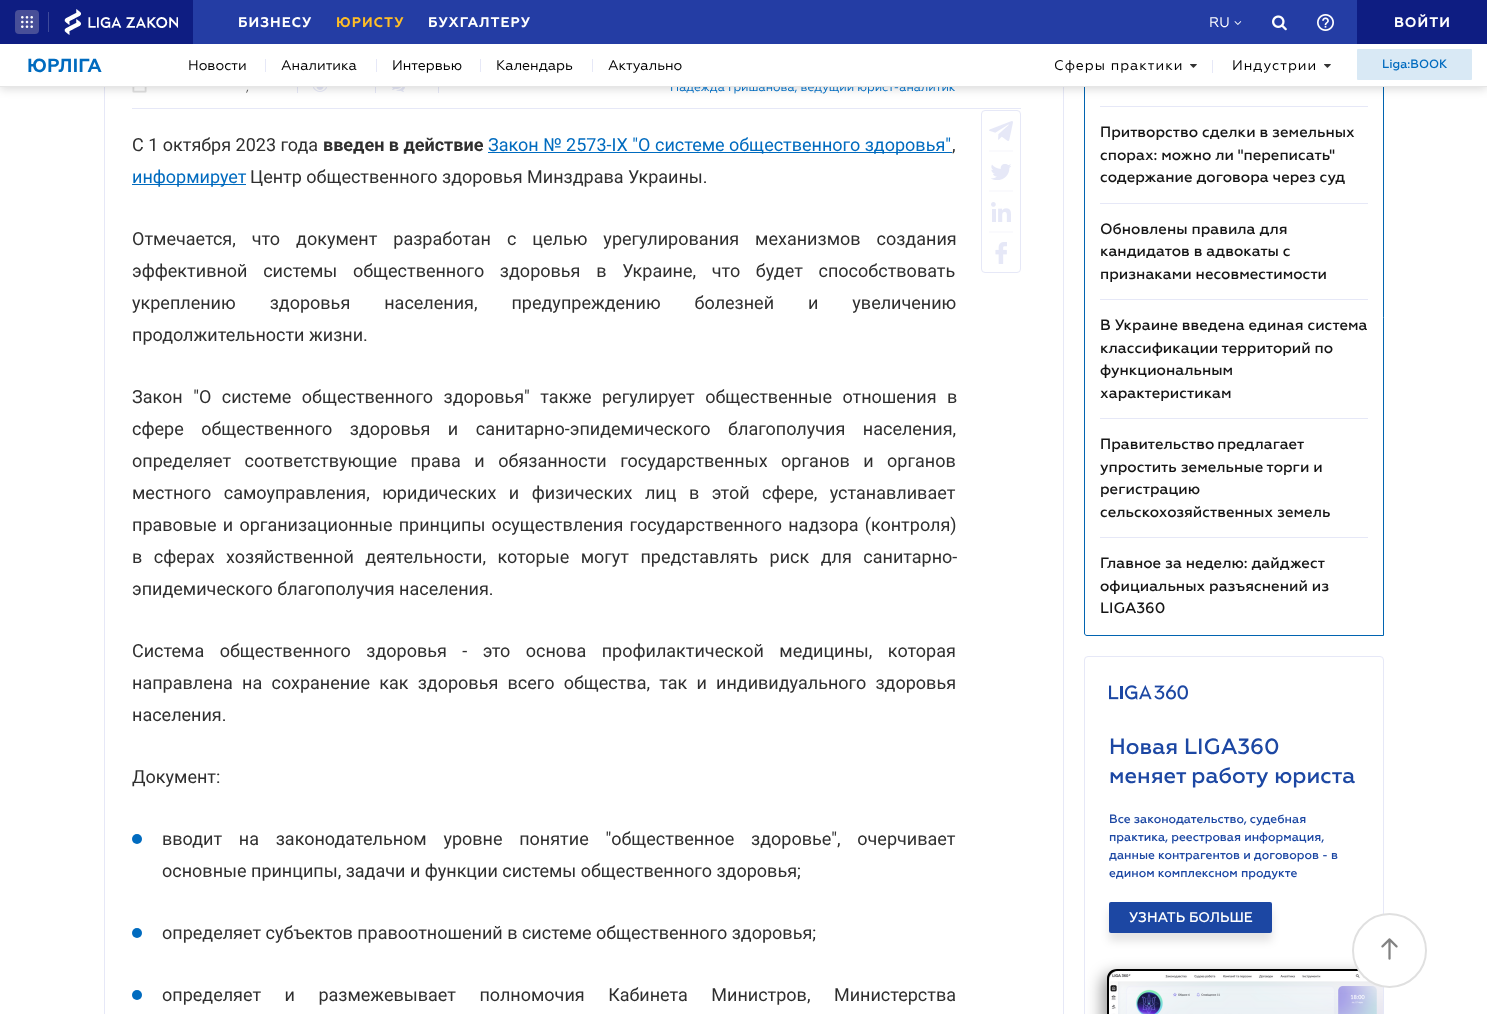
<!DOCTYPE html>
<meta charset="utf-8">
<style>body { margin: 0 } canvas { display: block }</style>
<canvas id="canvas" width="1487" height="1014"></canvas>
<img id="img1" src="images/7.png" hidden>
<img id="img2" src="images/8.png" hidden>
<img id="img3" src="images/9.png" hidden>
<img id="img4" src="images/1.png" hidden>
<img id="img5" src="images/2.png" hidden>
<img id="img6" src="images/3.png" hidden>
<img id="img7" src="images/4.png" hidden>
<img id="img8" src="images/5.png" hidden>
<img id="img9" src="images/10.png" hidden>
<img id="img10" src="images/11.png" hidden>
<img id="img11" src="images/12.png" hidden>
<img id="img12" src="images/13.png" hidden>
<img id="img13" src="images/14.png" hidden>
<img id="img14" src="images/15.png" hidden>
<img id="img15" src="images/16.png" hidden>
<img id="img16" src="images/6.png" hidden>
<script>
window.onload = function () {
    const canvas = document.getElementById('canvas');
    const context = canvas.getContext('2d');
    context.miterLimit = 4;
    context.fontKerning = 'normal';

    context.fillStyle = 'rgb(255, 255, 255)';
    context.fillRect(0, 0, 1487, 1014);
    context.strokeStyle = 'rgb(230, 232, 247)';
    context.strokeRect(104.5, -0.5, 959, 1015);
    context.drawImage(document.getElementById('img1'), 132, 87, 15, 6);
    context.fillStyle = 'rgb(230, 232, 247)';
    context.fillRect(297, 81, 1, 12);
    context.drawImage(document.getElementById('img2'), 313, 87, 14, 5);
    context.fillRect(375, 81, 1, 12);
    context.drawImage(document.getElementById('img3'), 391, 87, 14, 5);
    context.fillRect(438, 81, 1, 12);
    context.beginPath();
    context.moveTo(1087, -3.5);
    context.lineTo(1383.5, -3.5);
    context.lineTo(1383.5, 635.5);
    context.lineTo(1087, 635.5);
    context.bezierCurveTo(1085.5, 635.5, 1084.5, 634.5, 1084.5, 633);
    context.lineTo(1084.5, -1);
    context.bezierCurveTo(1084.5, -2.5, 1085.5, -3.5, 1087, -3.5);
    context.closePath();
    context.strokeStyle = 'rgb(1, 100, 177)';
    context.stroke();
    context.fillStyle = 'rgba(0, 0, 0, 0.15)';
    context.filter = 'blur(5px)';
    context.beginPath();
    context.rect(0, 46, 1487, 43);
    context.fill();
    context.filter = 'none';
    context.fillStyle = 'rgb(36, 61, 164)';
    context.fillRect(193, 0, 1164, 44);
    context.fillStyle = 'rgb(14, 29, 130)';
    context.fillRect(0, 0, 193, 44);
    context.fillStyle = 'rgb(72, 79, 152)';
    context.beginPath();
    context.roundRect(15, 10, 24, 24, 4);
    context.fill();
    context.drawImage(document.getElementById('img4'), 21, 16, 12, 12);
    context.fillStyle = 'rgb(62, 74, 155)';
    context.fillRect(48, 12, 1, 20);
    context.drawImage(document.getElementById('img5'), 64, 9, 114, 26);
    context.drawImage(document.getElementById('img6'), 1234, 21, 8, 4);
    context.drawImage(document.getElementById('img7'), 1272, 15, 15, 16);
    context.drawImage(document.getElementById('img8'), 1317, 14, 17, 17);
    context.fillStyle = 'rgb(14, 29, 130)';
    context.fillRect(1357, 0, 130, 44);
    context.fillStyle = 'rgb(230, 232, 247)';
    context.fillRect(132, 108, 889, 1);
    context.fillStyle = 'rgb(0, 107, 191)';
    context.fillRect(488, 152, 464, 1);
    context.fillRect(132, 184, 114, 1);
    context.beginPath();
    context.arc(137, 839, 5, 0, 2 * Math.PI);
    context.fill();
    context.beginPath();
    context.arc(137, 933, 5, 0, 2 * Math.PI);
    context.fill();
    context.beginPath();
    context.arc(137, 995, 5, 0, 2 * Math.PI);
    context.fill();
    context.beginPath();
    context.roundRect(981.5, 110.5, 39, 162, 3.5);
    context.strokeStyle = 'rgb(230, 232, 247)';
    context.stroke();
    context.drawImage(document.getElementById('img9'), 989, 121, 24, 20);
    context.fillStyle = 'rgb(250, 250, 253)';
    context.fillRect(989, 150, 24, 2);
    context.drawImage(document.getElementById('img10'), 991, 164, 20, 16);
    context.fillRect(989, 190, 24, 2);
    context.drawImage(document.getElementById('img11'), 991, 202, 20, 20);
    context.fillRect(989, 231, 24, 2);
    context.drawImage(document.getElementById('img12'), 995, 242, 12, 22);
    context.fillStyle = 'rgb(230, 232, 247)';
    context.fillRect(1100, 106, 268, 1);
    context.fillRect(1100, 203, 268, 1);
    context.fillRect(1100, 299, 268, 1);
    context.fillRect(1100, 418, 268, 1);
    context.fillRect(1100, 537, 268, 1);
    context.beginPath();
    context.roundRect(1084.5, 656.5, 299, 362, 3.5);
    context.stroke();
    context.drawImage(document.getElementById('img13'), 1109, 685, 79, 15);
    context.fillStyle = 'rgba(0, 0, 0, 0.11)';
    context.filter = 'blur(4px)';
    context.beginPath();
    context.roundRect(1109, 910, 163, 31, 2);
    context.fill();
    context.filter = 'none';
    context.fillStyle = 'rgb(28, 71, 163)';
    context.beginPath();
    context.roundRect(1109, 902, 163, 31, 2);
    context.fill();
    context.save();
    context.beginPath();
    context.roundRect(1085, 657, 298, 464, 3);
    context.clip();
    context.fillStyle = 'rgba(0, 0, 0, 0.39)';
    context.filter = 'blur(7.5px)';
    context.beginPath();
    context.roundRect(1102, 974, 276, 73, 10);
    context.fill();
    context.filter = 'none';
    context.restore();
    context.fillStyle = 'rgb(0, 0, 0)';
    context.beginPath();
    context.moveTo(1117, 969);
    context.lineTo(1383, 969);
    context.lineTo(1383, 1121);
    context.lineTo(1107, 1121);
    context.lineTo(1107, 979);
    context.bezierCurveTo(1107, 973, 1111, 969, 1117, 969);
    context.closePath();
    context.moveTo(1117, 971);
    context.lineTo(1383, 971);
    context.lineTo(1383, 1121);
    context.lineTo(1109, 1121);
    context.lineTo(1109, 979);
    context.bezierCurveTo(1109, 975, 1113, 971, 1117, 971);
    context.closePath();
    context.fill('evenodd');
    context.drawImage(document.getElementById('img14'), 1109, 971, 274, 43);
    context.fillStyle = 'rgb(255, 255, 255)';
    context.beginPath();
    context.arc(1389.5, 950.5, 36.5, 0, 2 * Math.PI);
    context.fill();
    context.strokeStyle = 'rgb(224, 224, 224)';
    context.lineWidth = 2;
    context.stroke();
    context.drawImage(document.getElementById('img15'), 1381, 938, 17, 22);
    context.letterSpacing = '1px';
    context.font = 'bold 14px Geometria';
    context.fillText('БИЗНЕСУ', 238, 27);
    context.fillStyle = 'rgb(255, 190, 38)';
    context.fillText('ЮРИСТУ', 336, 27);
    context.fillStyle = 'rgb(255, 255, 255)';
    context.fillText('БУХГАЛТЕРУ', 428, 27);
    context.letterSpacing = '0px';
    context.font = '14px Geometria';
    context.fillText('RU', 1209, 27);
    context.letterSpacing = '1px';
    context.font = 'bold 14px Geometria';
    context.fillText('ВОЙТИ', 1394, 27);
    context.letterSpacing = '0px';
    context.font = '12px Geometria';
    context.fillStyle = 'rgb(76, 76, 76)';
    context.fillText(',', 246, 91);
    context.fillStyle = 'rgb(0, 107, 191)';
    context.fillText('Надежда Гришанова, ведущий юрист-аналитик', 670, 91);
    context.fillStyle = 'rgb(255, 255, 255)';
    context.fillRect(0, 44, 1487, 42);
    context.drawImage(document.getElementById('img16'), 1324, 64, 7, 4);
    context.letterSpacing = '1px';
    context.font = '14px Geometria';
    context.fillStyle = 'rgb(0, 0, 0)';
    context.fillText('Индустрии', 1232, 70);
    context.fillStyle = 'rgb(230, 232, 247)';
    context.fillRect(1212, 60, 1, 13);
    context.drawImage(document.getElementById('img16'), 1190, 64, 7, 4);
    context.fillStyle = 'rgb(0, 0, 0)';
    context.fillText('Сферы практики', 1054, 70);
    context.fillStyle = 'rgb(230, 232, 247)';
    context.fillRect(592, 59, 1, 13);
    context.fillRect(480, 59, 1, 13);
    context.fillRect(376, 59, 1, 13);
    context.fillRect(265, 59, 1, 13);
    context.letterSpacing = '0px';
    context.font = 'bold 19px Geometria';
    context.fillStyle = 'rgb(0, 107, 191)';
    context.fillText('ЮРЛІГА', 27, 72);
    context.font = '14px Geometria';
    context.fillStyle = 'rgb(0, 0, 0)';
    context.fillText('Актуально', 608, 70);
    context.fillText('Календарь', 496, 70);
    context.fillText('Интервью', 392, 70);
    context.fillText('Аналитика', 281, 70);
    context.fillText('Новости', 188, 70);
    context.fillStyle = 'rgb(217, 233, 245)';
    context.beginPath();
    context.roundRect(1357, 49, 115, 31, 1);
    context.fill();
    context.font = '500 12px Geometria';
    context.fillStyle = 'rgb(0, 107, 191)';
    context.fillText('Liga:BOOK', 1382, 68);
    context.fillStyle = 'rgb(230, 230, 230)';
    context.fillRect(0, 86, 1487, 1);
    context.font = '18px Roboto';
    context.fillStyle = 'rgb(47, 47, 47)';
    context.fillText('С 1 октября 2023 года', 132, 151);
    context.font = 'bold 18px Roboto';
    context.fillText('введен в действие', 323, 151);
    context.font = '18px Roboto';
    context.fillStyle = 'rgb(0, 107, 191)';
    context.fillText('Закон № 2573-IX "О системе общественного здоровья"', 488, 151);
    context.fillStyle = 'rgb(47, 47, 47)';
    context.fillText(',', 952, 151);
    context.fillStyle = 'rgb(0, 107, 191)';
    context.fillText('информирует', 132, 183);
    context.fillStyle = 'rgb(47, 47, 47)';
    context.fillText('Центр общественного здоровья Минздрава Украины.', 250, 183);
    context.wordSpacing = '11.5px';
    context.fillText('Отмечается, что документ разработан с целью урегулирования механизмов создания', 132, 245);
    context.wordSpacing = '11.25px';
    context.fillText('эффективной системы общественного здоровья в Украине, что будет способствовать', 132, 277);
    context.wordSpacing = '29.5px';
    context.fillText('укреплению здоровья населения, предупреждению болезней и увеличению', 132, 309);
    context.wordSpacing = '0px';
    context.fillText('продолжительности жизни.', 132, 341);
    context.wordSpacing = '6px';
    context.fillText('Закон "О системе общественного здоровья" также регулирует общественные отношения в', 132, 403);
    context.wordSpacing = '13px';
    context.fillText('сфере общественного здоровья и санитарно-эпидемического благополучия населения,', 132, 435);
    context.wordSpacing = '9px';
    context.fillText('определяет соответствующие права и обязанности государственных органов и органов', 132, 467);
    context.wordSpacing = '8px';
    context.fillText('местного самоуправления, юридических и физических лиц в этой сфере, устанавливает', 132, 499);
    context.wordSpacing = '1.75px';
    context.fillText('правовые и организационные принципы осуществления государственного надзора (контроля)', 132, 531);
    context.wordSpacing = '7px';
    context.fillText('в сферах хозяйственной деятельности, которые могут представлять риск для санитарно-', 132, 563);
    context.wordSpacing = '0px';
    context.fillText('эпидемического благополучия населения.', 132, 595);
    context.wordSpacing = '11px';
    context.fillText('Система общественного здоровья - это основа профилактической медицины, которая', 132, 657);
    context.wordSpacing = '4.75px';
    context.fillText('направлена на сохранение как здоровья всего общества, так и индивидуального здоровья', 132, 689);
    context.wordSpacing = '0px';
    context.fillText('населения.', 132, 721);
    context.fillText('Документ:', 132, 783);
    context.wordSpacing = '12.25px';
    context.fillText('вводит на законодательном уровне понятие "общественное здоровье", очерчивает', 162, 845);
    context.wordSpacing = '0px';
    context.fillText('основные принципы, задачи и функции системы общественного здоровья;', 162, 877);
    context.fillText('определяет субъектов правоотношений в системе общественного здоровья;', 162, 939);
    context.wordSpacing = '19px';
    context.fillText('определяет и размежевывает полномочия Кабинета Министров, Министерства', 162, 1001);
    context.wordSpacing = '0px';
    context.font = '500 15px Geometria';
    context.fillStyle = 'rgb(22, 22, 22)';
    context.fillText('Притворство сделки в земельных', 1100, 137);
    context.fillText('спорах: можно ли "переписать"', 1100, 160);
    context.fillText('содержание договора через суд', 1100, 182);
    context.fillText('Обновлены правила для', 1100, 234);
    context.fillText('кандидатов в адвокаты с', 1100, 256);
    context.fillText('признаками несовместимости', 1100, 279);
    context.fillText('В Украине введена единая система', 1100, 330);
    context.fillText('классификации территорий по', 1100, 353);
    context.fillText('функциональным', 1100, 375);
    context.fillText('характеристикам', 1100, 398);
    context.wordSpacing = '-1px';
    context.fillText('Правительство предлагает', 1100, 449);
    context.wordSpacing = '0px';
    context.fillText('упростить земельные торги и', 1100, 472);
    context.fillText('регистрацию', 1100, 494);
    context.fillText('сельскохозяйственных земель', 1100, 517);
    context.fillText('Главное за неделю: дайджест', 1100, 568);
    context.fillText('официальных разъяснений из', 1100, 591);
    context.fillText('LIGA360', 1100, 613);
    context.font = '500 22px Geometria';
    context.fillStyle = 'rgb(28, 71, 163)';
    context.fillText('Новая LIGA360', 1109, 754);
    context.fillText('меняет работу юриста', 1109, 783);
    context.font = '500 12px Geometria';
    context.fillText('Все законодательство, судебная', 1109, 823);
    context.fillText('практика, реестровая информация,', 1109, 841);
    context.fillText('данные контрагентов и договоров - в', 1109, 859);
    context.fillText('едином комплексном продукте', 1109, 877);
    context.font = '500 14px Geometria';
    context.fillStyle = 'rgb(255, 255, 255)';
    context.fillText('УЗНАТЬ БОЛЬШЕ', 1129, 922);
};
</script>
